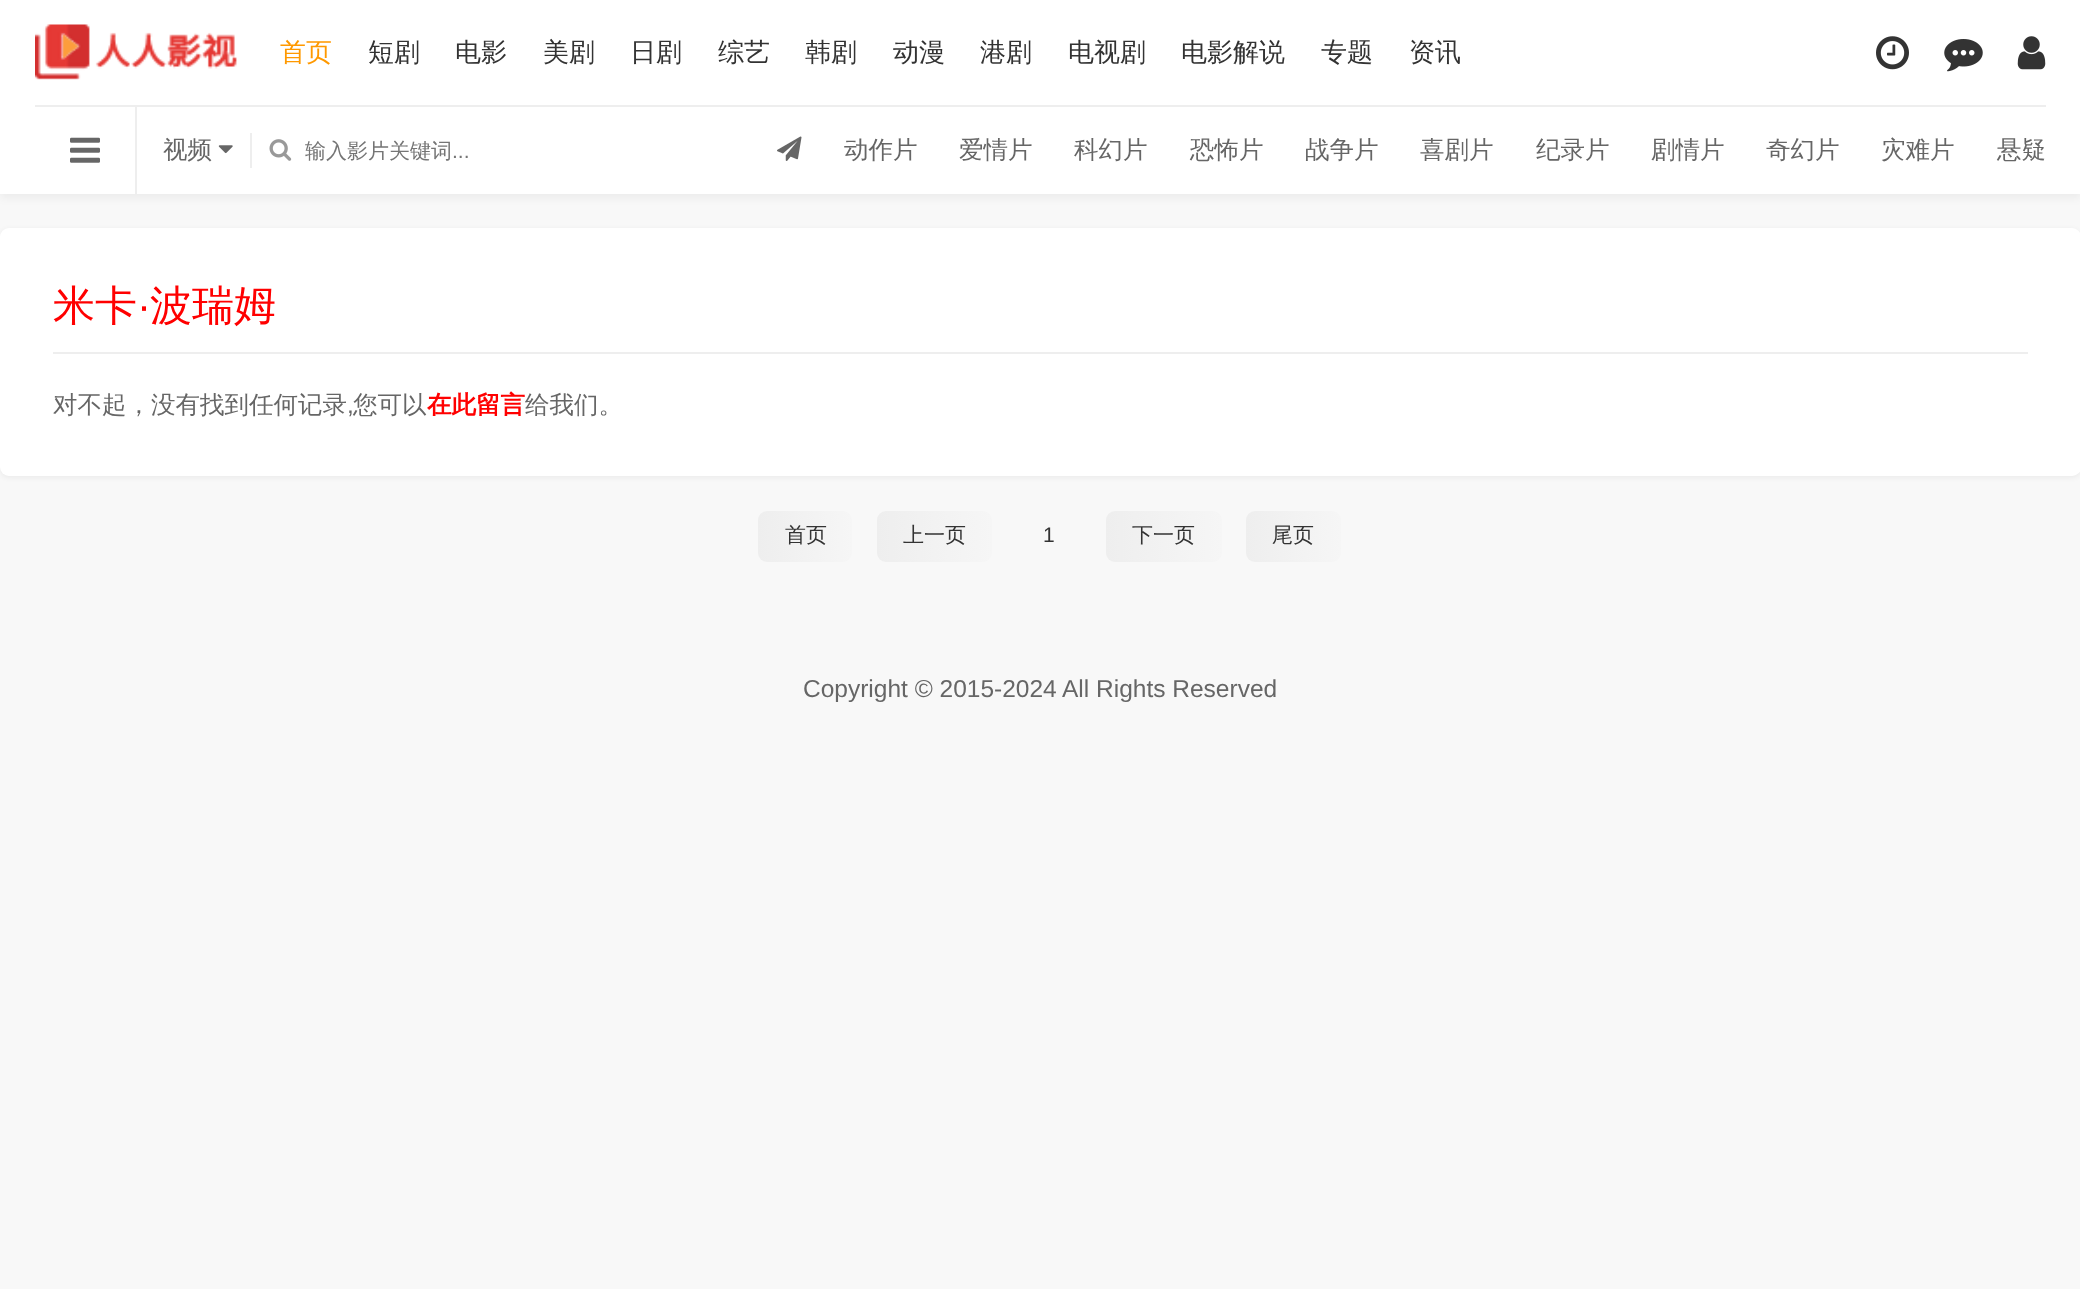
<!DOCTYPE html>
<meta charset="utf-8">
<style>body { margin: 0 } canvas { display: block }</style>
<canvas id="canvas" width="2080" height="1289"></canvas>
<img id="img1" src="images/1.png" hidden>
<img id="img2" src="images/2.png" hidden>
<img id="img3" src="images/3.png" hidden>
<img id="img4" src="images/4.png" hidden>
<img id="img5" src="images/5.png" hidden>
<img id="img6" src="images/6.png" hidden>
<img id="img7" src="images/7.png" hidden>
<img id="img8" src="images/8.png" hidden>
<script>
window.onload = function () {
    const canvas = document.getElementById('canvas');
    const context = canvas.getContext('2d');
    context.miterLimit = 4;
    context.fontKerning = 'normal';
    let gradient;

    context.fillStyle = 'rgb(248, 248, 248)';
    context.fillRect(0, 0, 2080, 1289);
    context.fillStyle = 'rgba(0, 0, 0, 0.05)';
    context.filter = 'blur(4.5px)';
    context.beginPath();
    context.rect(0, 4, 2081, 194);
    context.fill();
    context.filter = 'none';
    context.fillStyle = 'rgb(255, 255, 255)';
    context.fillRect(0, 0, 2080, 194);
    context.drawImage(document.getElementById('img1'), 35, 24, 202, 56);
    context.drawImage(document.getElementById('img2'), 1876, 36, 33, 34);
    context.drawImage(document.getElementById('img3'), 1944, 39, 39, 33);
    context.drawImage(document.getElementById('img4'), 2017, 36, 29, 34);
    context.fillStyle = 'rgb(238, 238, 238)';
    context.fillRect(35, 105, 2011, 2);
    context.fillRect(135, 107, 2, 87);
    context.drawImage(document.getElementById('img5'), 70, 137, 30, 26);
    context.fillRect(250, 133, 2, 35);
    context.drawImage(document.getElementById('img6'), 218, 145, 15, 9);
    context.drawImage(document.getElementById('img7'), 269, 139, 23, 22);
    context.drawImage(document.getElementById('img8'), 777, 136, 25, 25);
    context.fillStyle = 'rgba(0, 0, 0, 0.05)';
    context.filter = 'blur(2.5px)';
    context.beginPath();
    context.roundRect(0, 229, 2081, 249, 9);
    context.fill();
    context.filter = 'none';
    context.fillStyle = 'rgb(255, 255, 255)';
    context.beginPath();
    context.roundRect(0, 228, 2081, 248, 9);
    context.fill();
    context.fillStyle = 'rgb(238, 238, 238)';
    context.fillRect(53, 352, 1975, 2);
    gradient = context.createLinearGradient(758, 536, 852, 536);
    gradient.addColorStop(0, 'rgb(238, 238, 238)');
    gradient.addColorStop(1, 'rgb(246, 246, 246)');
    context.fillStyle = gradient;
    context.beginPath();
    context.roundRect(758, 511, 94, 51, 9);
    context.fill();
    gradient = context.createLinearGradient(877, 536, 992, 536);
    gradient.addColorStop(0, 'rgb(238, 238, 238)');
    gradient.addColorStop(1, 'rgb(246, 246, 246)');
    context.fillStyle = gradient;
    context.beginPath();
    context.roundRect(877, 511, 115, 51, 9);
    context.fill();
    gradient = context.createLinearGradient(1106, 536, 1222, 536);
    gradient.addColorStop(0, 'rgb(238, 238, 238)');
    gradient.addColorStop(1, 'rgb(246, 246, 246)');
    context.fillStyle = gradient;
    context.beginPath();
    context.roundRect(1106, 511, 116, 51, 9);
    context.fill();
    gradient = context.createLinearGradient(1246, 536, 1341, 536);
    gradient.addColorStop(0, 'rgb(238, 238, 238)');
    gradient.addColorStop(1, 'rgb(246, 246, 246)');
    context.fillStyle = gradient;
    context.beginPath();
    context.roundRect(1246, 511, 95, 51, 9);
    context.fill();
    context.font = '500 26px WenQuanYi Zen Hei';
    context.fillStyle = 'rgb(255, 153, 0)';
    context.fillText('首页', 280, 61);
    context.fillStyle = 'rgb(51, 51, 51)';
    context.fillText('短剧', 368, 61);
    context.fillText('电影', 455, 61);
    context.fillText('美剧', 543, 61);
    context.fillText('日剧', 630, 61);
    context.fillText('综艺', 718, 61);
    context.fillText('韩剧', 805, 61);
    context.fillText('动漫', 893, 61);
    context.fillText('港剧', 980, 61);
    context.fillText('电视剧', 1068, 61);
    context.fillText('电影解说', 1181, 61);
    context.fillText('专题', 1321, 61);
    context.fillText('资讯', 1409, 61);
    context.font = '500 24.5px WenQuanYi Zen Hei';
    context.fillStyle = 'rgb(102, 102, 102)';
    context.fillText('视频', 163, 158);
    context.font = '500 21px WenQuanYi Zen Hei';
    context.fillStyle = 'rgb(117, 117, 117)';
    context.fillText('输入影片关键词', 305, 158);
    context.font = '21px Liberation Sans';
    context.fillText('...', 452, 158);
    context.font = '500 24.5px WenQuanYi Zen Hei';
    context.fillStyle = 'rgb(102, 102, 102)';
    context.fillText('动作片', 844, 158);
    context.fillText('爱情片', 959, 158);
    context.fillText('科幻片', 1074, 158);
    context.fillText('恐怖片', 1190, 158);
    context.fillText('战争片', 1305, 158);
    context.fillText('喜剧片', 1420, 158);
    context.fillText('纪录片', 1536, 158);
    context.fillText('剧情片', 1651, 158);
    context.fillText('奇幻片', 1766, 158);
    context.fillText('灾难片', 1881, 158);
    context.fillText('悬疑', 1997, 158);
    context.font = '500 42px WenQuanYi Zen Hei';
    context.fillStyle = 'rgb(255, 0, 0)';
    context.fillText('米卡', 53, 320);
    context.font = '42px Liberation Sans';
    context.fillText('·', 137, 320);
    context.font = '500 42px WenQuanYi Zen Hei';
    context.fillText('波瑞姆', 150, 320);
    context.font = '500 24.5px WenQuanYi Zen Hei';
    context.fillStyle = 'rgb(102, 102, 102)';
    context.fillText('对不起，没有找到任何记录', 53, 413);
    context.font = '24.5px Liberation Sans';
    context.fillText(',', 347, 413);
    context.font = '500 24.5px WenQuanYi Zen Hei';
    context.fillText('您可以', 353, 413);
    context.font = 'bold 24.5px WenQuanYi Zen Hei';
    context.fillStyle = 'rgb(255, 0, 0)';
    context.fillText('在此留言', 427, 413);
    context.font = '500 24.5px WenQuanYi Zen Hei';
    context.fillStyle = 'rgb(102, 102, 102)';
    context.fillText('给我们。', 525, 413);
    context.font = '500 21px WenQuanYi Zen Hei';
    context.fillStyle = 'rgb(51, 51, 51)';
    context.fillText('首页', 785, 542);
    context.fillText('上一页', 903, 542);
    context.font = '21px Liberation Sans';
    context.fillText('1', 1043, 542);
    context.font = '500 21px WenQuanYi Zen Hei';
    context.fillText('下一页', 1132, 542);
    context.fillText('尾页', 1272, 542);
    context.font = '24.5px Liberation Sans';
    context.fillStyle = 'rgb(102, 102, 102)';
    context.fillText('Copyright © 2015-2024', 803, 697);
    context.fillText('All Rights Reserved', 1062, 697);
};
</script>
